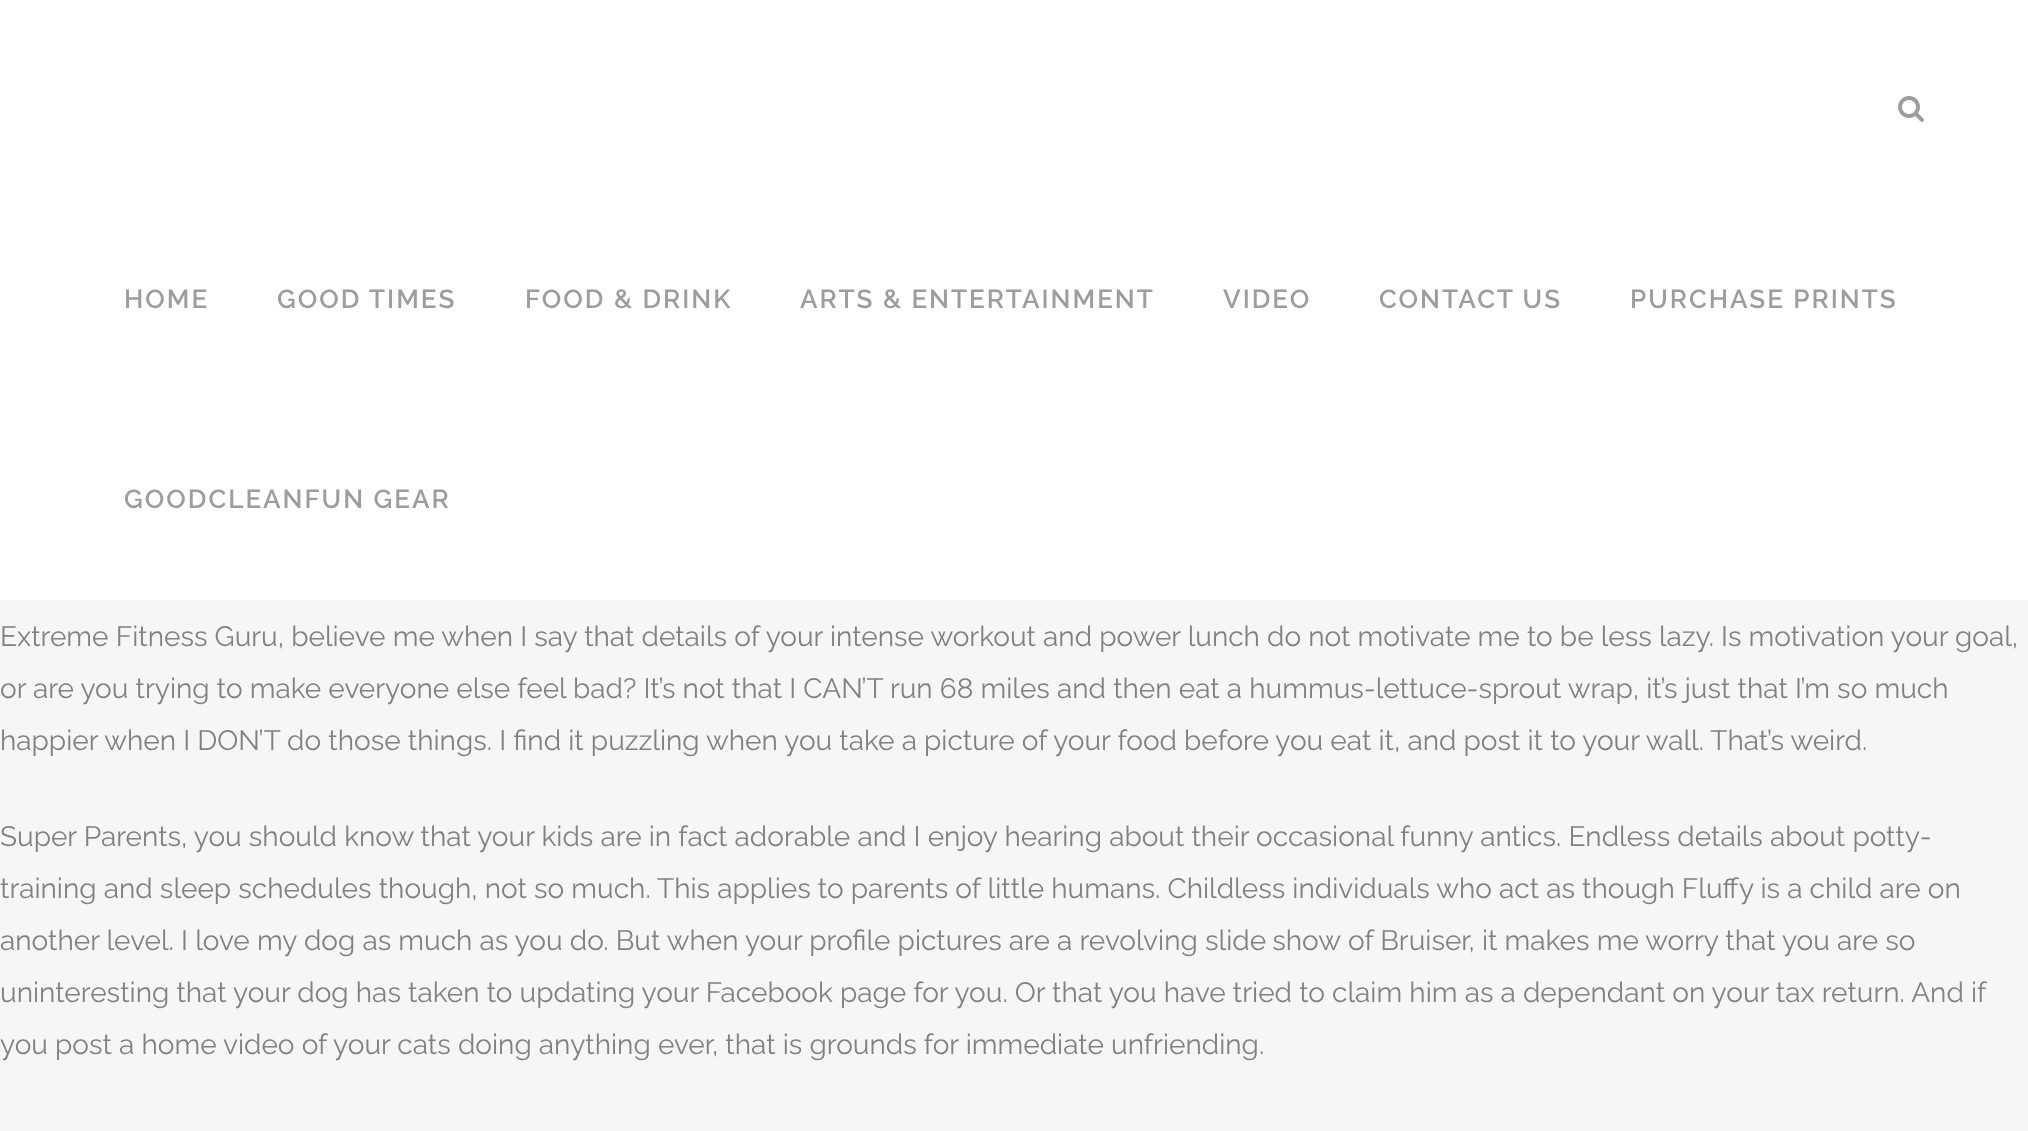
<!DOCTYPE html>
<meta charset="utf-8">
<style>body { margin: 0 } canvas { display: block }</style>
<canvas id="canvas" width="2028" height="1131"></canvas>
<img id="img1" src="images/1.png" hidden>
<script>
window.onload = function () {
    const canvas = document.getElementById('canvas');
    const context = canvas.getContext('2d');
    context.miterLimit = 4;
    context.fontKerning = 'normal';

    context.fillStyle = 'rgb(246, 246, 246)';
    context.fillRect(0, 0, 2028, 1131);
    context.fillStyle = 'rgb(255, 255, 255)';
    context.fillRect(0, 0, 2028, 600);
    context.drawImage(document.getElementById('img1'), 1898, 96, 26, 26);
    context.letterSpacing = '2px';
    context.font = '600 26px Raleway';
    context.fillStyle = 'rgb(157, 157, 157)';
    context.fillText('HOME', 124, 308);
    context.fillText('GOOD TIMES', 277, 308);
    context.fillText('FOOD & DRINK', 525, 308);
    context.fillText('ARTS & ENTERTAINMENT', 800, 308);
    context.fillText('VIDEO', 1223, 308);
    context.fillText('CONTACT US', 1379, 308);
    context.fillText('PURCHASE PRINTS', 1630, 308);
    context.fillText('GOODCLEANFUN GEAR', 124, 508);
    context.letterSpacing = '0px';
    context.font = '28px Raleway';
    context.fillStyle = 'rgb(129, 129, 129)';
    context.fillText('Extreme Fitness Guru, believe me when I say that details of your intense workout and power lunch do not motivate me to be less lazy. Is motivation your goal,', 0, 646);
    context.fillText('or are you trying to make everyone else feel bad? It’s not that I CAN’T run 68 miles and then eat a hummus-lettuce-sprout wrap, it’s just that I’m so much', 0, 698);
    context.fillText('happier when I DON’T do those things. I find it puzzling when you take a picture of your food before you eat it, and post it to your wall. That’s weird.', 0, 750);
    context.fillText('Super Parents, you should know that your kids are in fact adorable and I enjoy hearing about their occasional funny antics. Endless details about potty-', 0, 846);
    context.fillText('training and sleep schedules though, not so much. This applies to parents of little humans. Childless individuals who act as though Fluffy is a child are on', 0, 898);
    context.fillText('another level. I love my dog as much as you do. But when your profile pictures are a revolving', 0, 950);
    context.wordSpacing = '-1px';
    context.fillText('slide show', 1205, 950);
    context.wordSpacing = '0px';
    context.fillText('of Bruiser, it makes me worry that you are so', 1348, 950);
    context.fillText('uninteresting that your dog has taken to updating your Facebook page for you. Or that you have tried to claim him as a dependant on your tax return. And if', 0, 1002);
    context.fillText('you post a home video of your cats doing anything ever, that is grounds for immediate unfriending.', 0, 1054);
};
</script>
